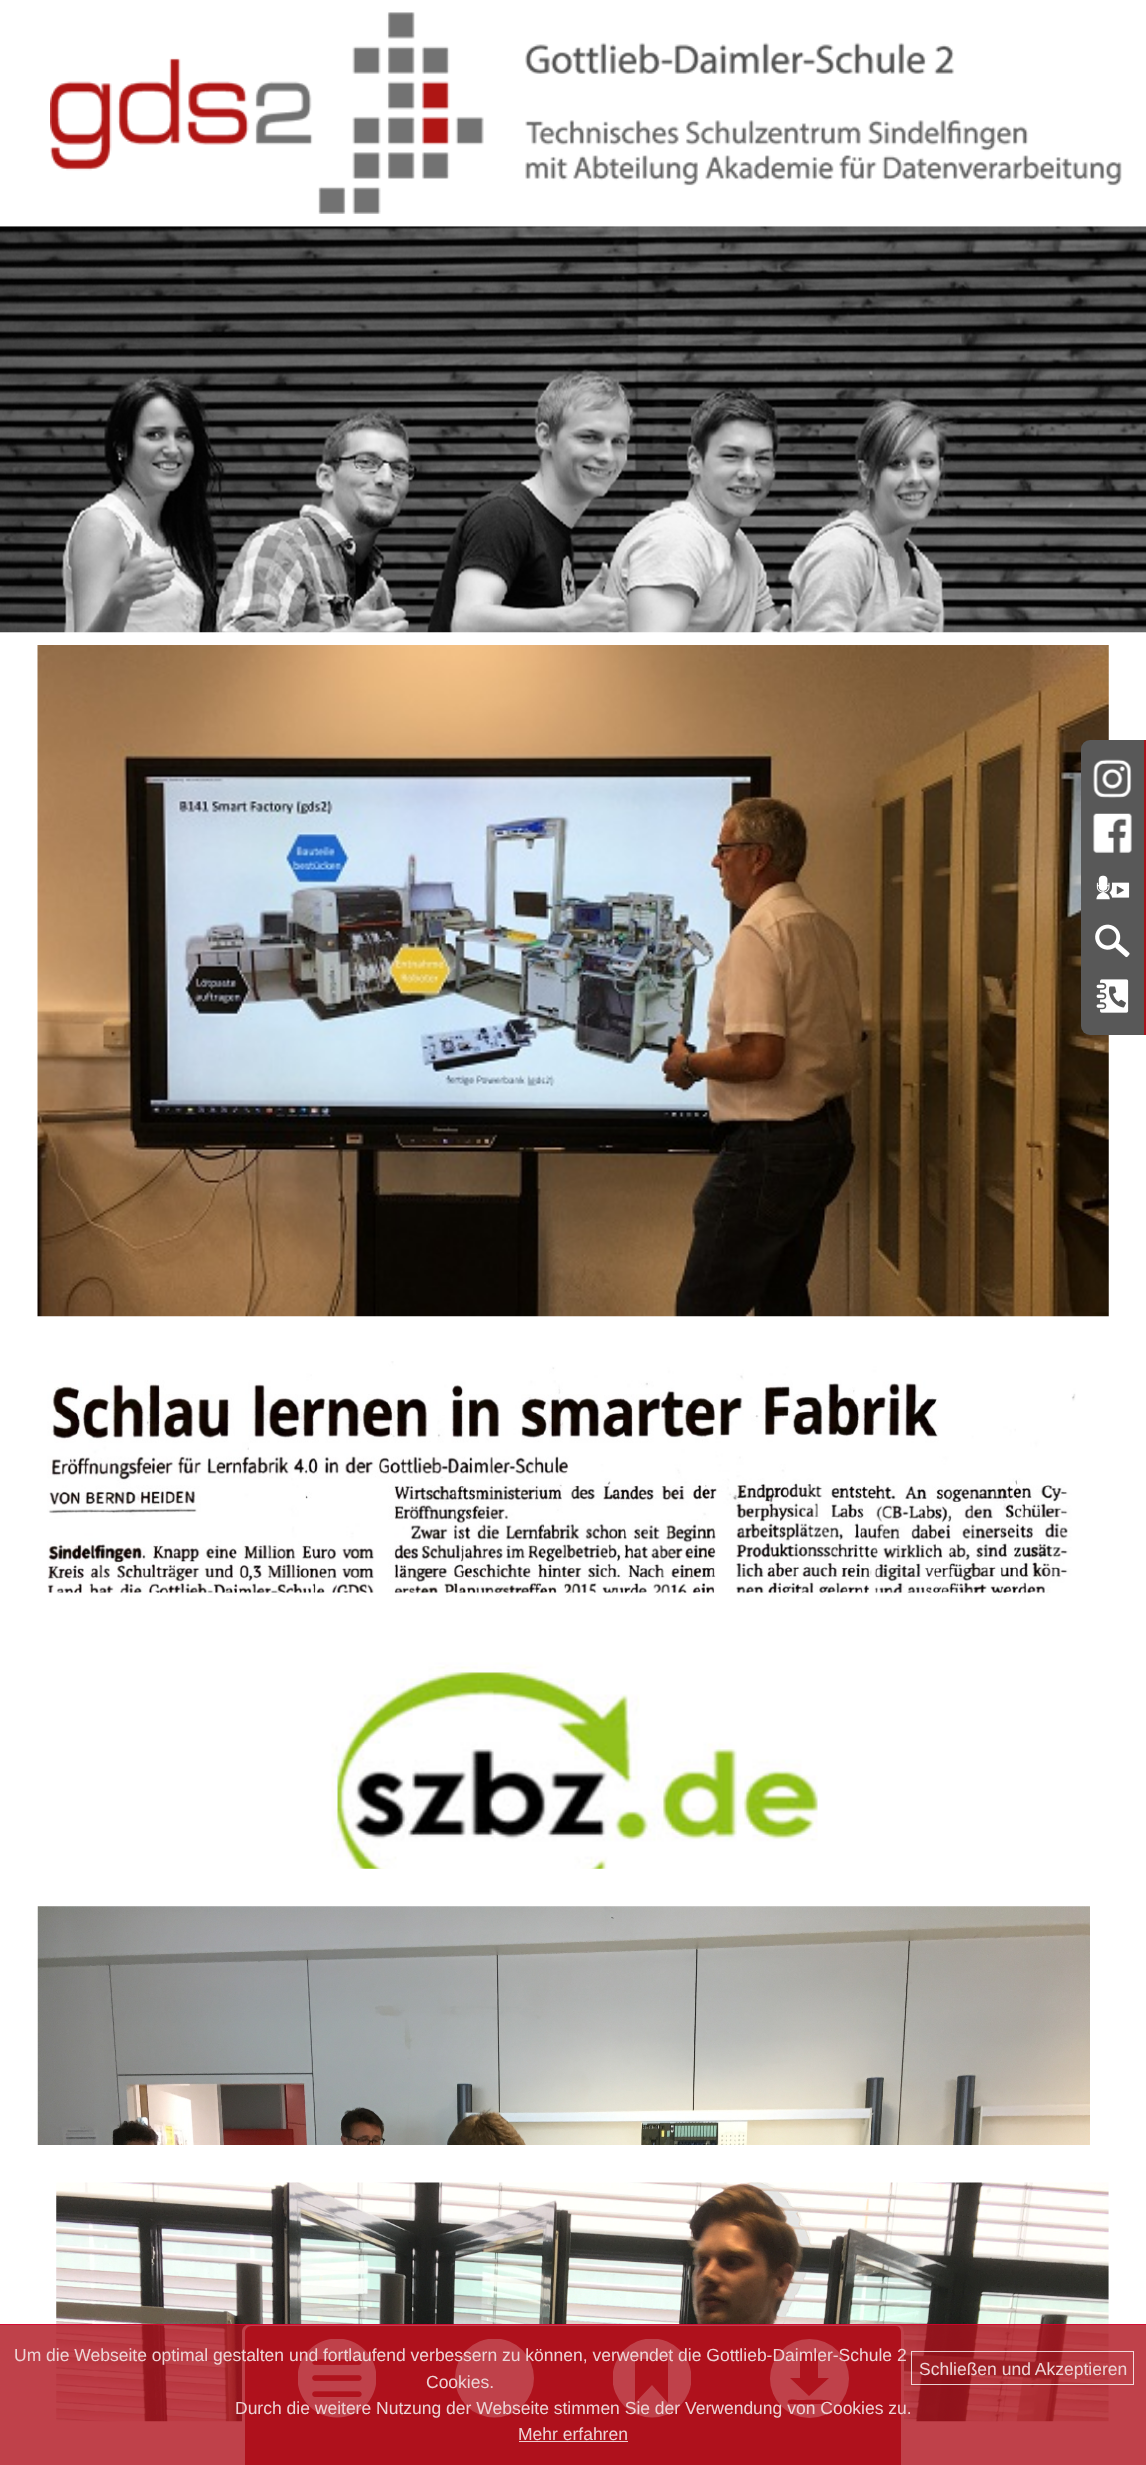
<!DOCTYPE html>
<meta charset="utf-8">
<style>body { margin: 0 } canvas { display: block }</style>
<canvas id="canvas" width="1146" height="2465"></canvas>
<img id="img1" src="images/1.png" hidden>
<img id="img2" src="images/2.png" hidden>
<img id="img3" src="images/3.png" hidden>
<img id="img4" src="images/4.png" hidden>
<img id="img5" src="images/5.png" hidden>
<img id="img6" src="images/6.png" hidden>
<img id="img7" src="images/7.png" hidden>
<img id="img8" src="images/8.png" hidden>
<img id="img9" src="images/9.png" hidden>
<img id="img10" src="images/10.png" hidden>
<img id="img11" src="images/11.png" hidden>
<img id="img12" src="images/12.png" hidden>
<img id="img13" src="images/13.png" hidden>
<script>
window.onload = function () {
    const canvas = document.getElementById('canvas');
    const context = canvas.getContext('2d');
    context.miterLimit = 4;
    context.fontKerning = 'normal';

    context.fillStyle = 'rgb(255, 255, 255)';
    context.fillRect(0, 0, 1146, 2465);
    context.drawImage(document.getElementById('img1'), 50, 12, 1072, 202);
    context.drawImage(document.getElementById('img2'), 0, 226, 1146, 407);
    context.drawImage(document.getElementById('img3'), 37, 645, 1072, 672);
    context.drawImage(document.getElementById('img4'), 47, 1361, 1029, 232);
    context.drawImage(document.getElementById('img5'), 331, 1662, 487, 207);
    context.drawImage(document.getElementById('img6'), 37, 1906, 1053, 239);
    context.drawImage(document.getElementById('img7'), 56, 2182, 1053, 240);
    context.fillStyle = 'rgb(88, 88, 88)';
    context.beginPath();
    context.roundRect(1081, 740, 65, 295, [9, 0, 0, 9]);
    context.fill();
    context.fillStyle = 'rgb(175, 17, 29)';
    context.fillRect(1144, 740, 2, 295);
    context.drawImage(document.getElementById('img8'), 1093, 759, 39, 39);
    context.drawImage(document.getElementById('img9'), 1093, 813, 39, 40);
    context.drawImage(document.getElementById('img10'), 1096, 875, 34, 25);
    context.drawImage(document.getElementById('img11'), 1095, 924, 35, 34);
    context.drawImage(document.getElementById('img12'), 1096, 979, 33, 34);
    context.beginPath();
    context.roundRect(243, 2324, 661, 141, [9, 9, 0, 0]);
    context.fill();
    context.fillStyle = 'rgb(255, 255, 255)';
    context.beginPath();
    context.moveTo(251, 2324);
    context.lineTo(896, 2324);
    context.bezierCurveTo(900, 2324, 904, 2327, 904, 2332);
    context.lineTo(904, 2465);
    context.lineTo(242, 2465);
    context.lineTo(242, 2332);
    context.bezierCurveTo(242, 2327, 246, 2324, 251, 2324);
    context.closePath();
    context.moveTo(251, 2326);
    context.lineTo(896, 2326);
    context.bezierCurveTo(899, 2326, 901, 2329, 901, 2332);
    context.lineTo(901, 2465);
    context.lineTo(245, 2465);
    context.lineTo(245, 2332);
    context.bezierCurveTo(245, 2329, 248, 2326, 251, 2326);
    context.closePath();
    context.fill('evenodd');
    context.drawImage(document.getElementById('img13'), 298, 2339, 78, 79);
    context.save();
    context.beginPath();
    context.rect(455, 2339, 79, 79);
    context.clip();
    context.beginPath();
    context.arc(494.5, 2378, 39.5, 0, 2 * Math.PI);
    context.fill();
    context.restore();
    context.save();
    context.beginPath();
    context.rect(613, 2339, 78, 79);
    context.clip();
    context.beginPath();
    context.arc(652, 2378, 39.5, 0, 2 * Math.PI);
    context.fill();
    context.restore();
    context.fillStyle = 'rgb(174, 25, 33)';
    context.beginPath();
    context.moveTo(668, 2359);
    context.lineTo(668, 2403);
    context.lineTo(652, 2385);
    context.lineTo(635, 2403);
    context.lineTo(635, 2359);
    context.closePath();
    context.fill();
    context.fillStyle = 'rgb(255, 255, 255)';
    context.beginPath();
    context.arc(809.5, 2378.5, 39.5, 0, 2 * Math.PI);
    context.fill();
    context.fillStyle = 'rgb(174, 25, 33)';
    context.beginPath();
    context.moveTo(829, 2378);
    context.lineTo(809, 2396);
    context.lineTo(790, 2378);
    context.lineTo(800, 2378);
    context.lineTo(800, 2353);
    context.lineTo(818, 2353);
    context.lineTo(818, 2378);
    context.closePath();
    context.moveTo(829, 2404);
    context.lineTo(790, 2404);
    context.lineTo(788, 2403);
    context.bezierCurveTo(786, 2398, 796, 2400, 797, 2400);
    context.bezierCurveTo(801, 2400, 830, 2399, 831, 2401);
    context.bezierCurveTo(832, 2402, 831, 2404, 829, 2404);
    context.closePath();
    context.fill();
    context.fillStyle = 'rgba(175, 17, 29, 0.8)';
    context.fillRect(0, 2324, 1146, 141);
    context.fillStyle = 'rgba(219, 0, 46, 0.8)';
    context.fillRect(0, 2324, 1146, 1);
    context.strokeStyle = 'rgba(255, 255, 255, 0.8)';
    context.strokeRect(911.5, 2351.5, 222, 33);
    context.fillStyle = 'rgba(255, 255, 255, 0.8)';
    context.fillRect(519, 2441, 109, 1);
    context.font = '17.5px Liberation Sans';
    context.fillStyle = 'rgb(237, 212, 213)';
    context.fillText('Um die Webseite optimal gestalten und fortlaufend verbessern zu können, verwendet die Gottlieb-Daimler-Schule 2', 14, 2361);
    context.fillText('Schließen und Akzeptieren', 919, 2375);
    context.fillText('Cookies.', 426, 2388);
    context.fillText('Durch die weitere Nutzung der Webseite stimmen Sie der Verwendung von Cookies zu.', 235, 2414);
    context.fillText('Mehr erfahren', 518, 2440);
};
</script>
